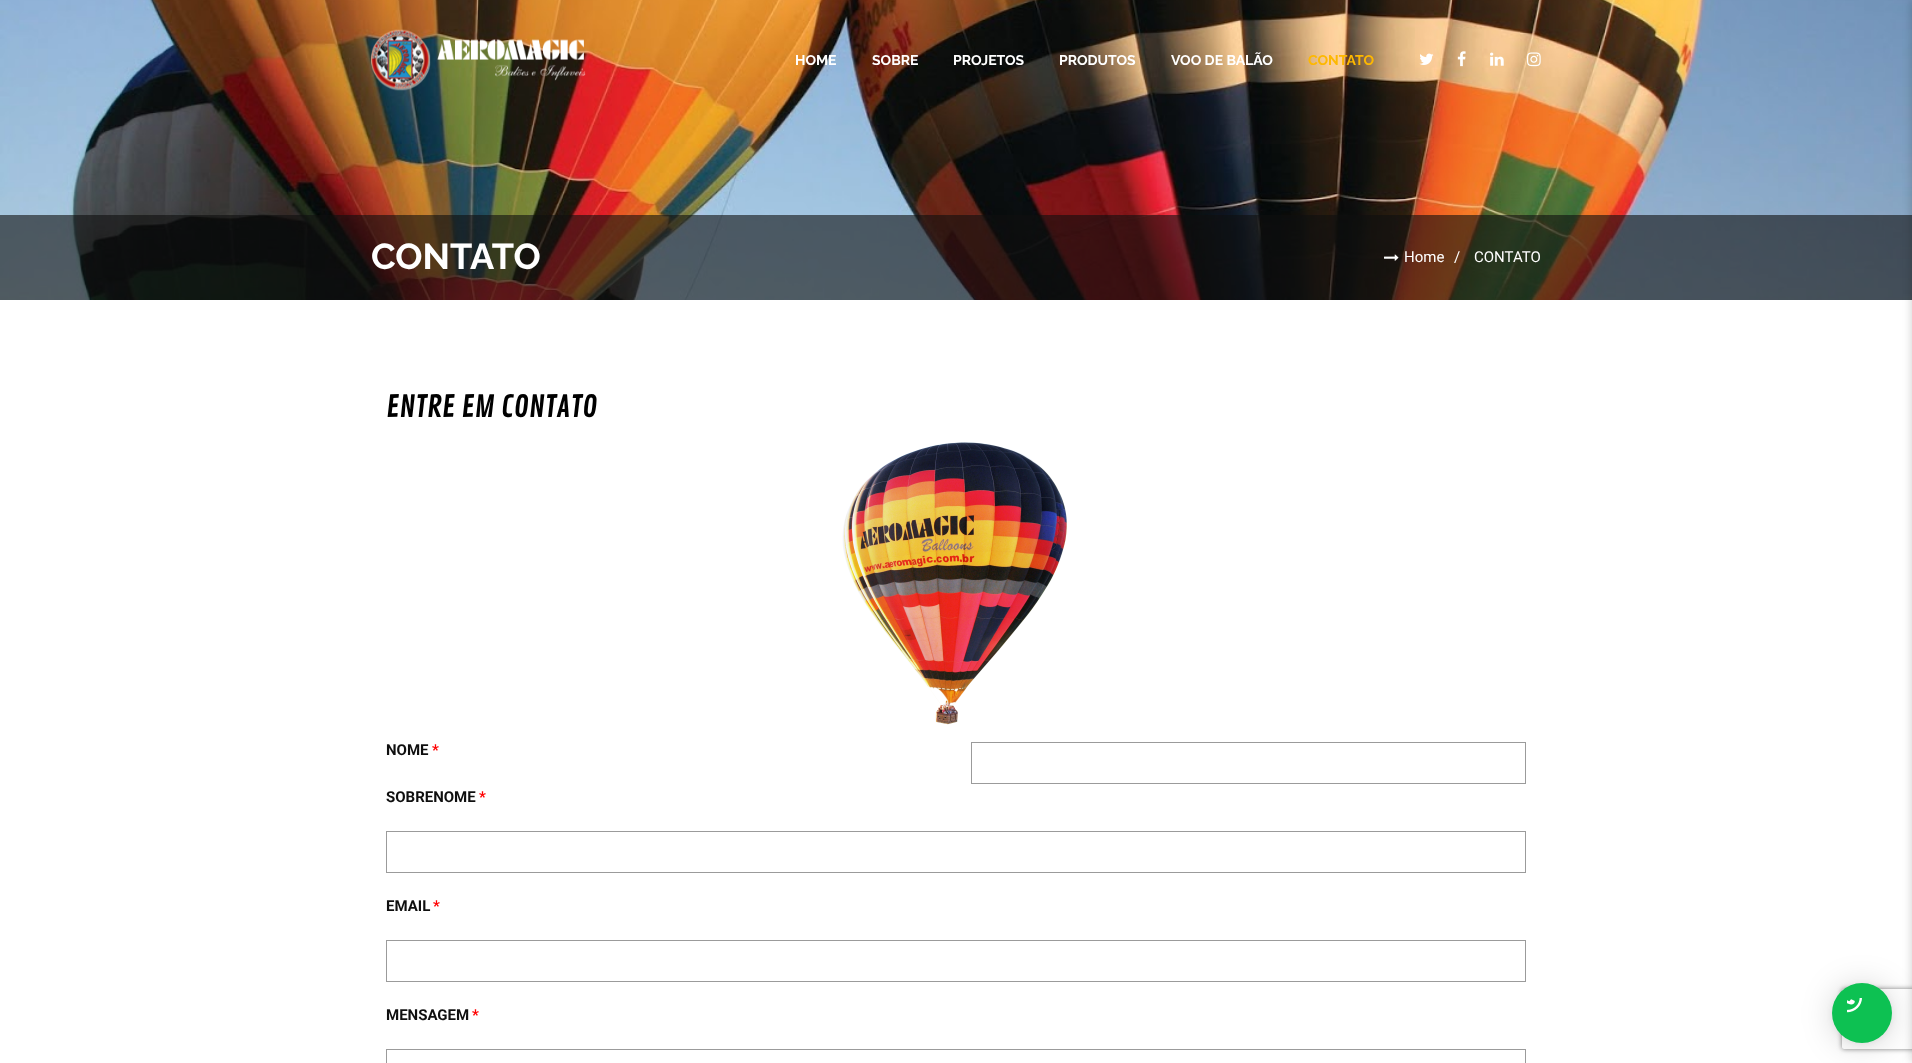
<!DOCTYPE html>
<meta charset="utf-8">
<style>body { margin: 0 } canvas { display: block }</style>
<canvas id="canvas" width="1912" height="1063"></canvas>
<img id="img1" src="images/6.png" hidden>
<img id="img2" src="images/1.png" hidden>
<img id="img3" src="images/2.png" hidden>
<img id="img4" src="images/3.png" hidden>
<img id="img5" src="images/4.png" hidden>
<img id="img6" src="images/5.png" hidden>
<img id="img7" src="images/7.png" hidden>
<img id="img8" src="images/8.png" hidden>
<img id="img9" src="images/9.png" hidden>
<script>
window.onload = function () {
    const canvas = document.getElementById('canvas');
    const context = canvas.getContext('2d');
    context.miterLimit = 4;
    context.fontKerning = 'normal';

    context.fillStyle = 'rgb(255, 255, 255)';
    context.fillRect(0, 0, 1912, 1063);
    context.drawImage(document.getElementById('img1'), 0, 0, 1912, 300);
    context.drawImage(document.getElementById('img2'), 371, 29, 215, 62);
    context.drawImage(document.getElementById('img3'), 1419, 53, 15, 12);
    context.drawImage(document.getElementById('img4'), 1457, 51, 9, 16);
    context.drawImage(document.getElementById('img5'), 1490, 52, 14, 14);
    context.drawImage(document.getElementById('img6'), 1527, 52, 14, 15);
    context.fillStyle = 'rgba(15, 15, 15, 0.6)';
    context.fillRect(0, 215, 1912, 85);
    context.drawImage(document.getElementById('img7'), 1384, 254, 15, 7);
    context.drawImage(document.getElementById('img8'), 842, 442, 225, 283);
    context.strokeStyle = 'rgb(155, 155, 155)';
    context.strokeRect(971.5, 742.5, 554, 41);
    context.strokeRect(386.5, 831.5, 1139, 41);
    context.strokeRect(386.5, 940.5, 1139, 41);
    context.strokeRect(386.5, 1049.5, 1139, 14);
    context.save();
    context.beginPath();
    context.moveTo(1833, 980);
    context.lineTo(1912, 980);
    context.lineTo(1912, 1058);
    context.lineTo(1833, 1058);
    context.closePath();
    context.moveTo(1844, 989);
    context.lineTo(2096, 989);
    context.bezierCurveTo(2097, 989, 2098, 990, 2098, 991);
    context.lineTo(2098, 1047);
    context.bezierCurveTo(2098, 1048, 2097, 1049, 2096, 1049);
    context.lineTo(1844, 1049);
    context.bezierCurveTo(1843, 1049, 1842, 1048, 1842, 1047);
    context.lineTo(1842, 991);
    context.bezierCurveTo(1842, 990, 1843, 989, 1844, 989);
    context.closePath();
    context.clip('evenodd');
    context.fillStyle = 'rgb(128, 128, 128)';
    context.filter = 'blur(2.5px)';
    context.beginPath();
    context.roundRect(1842, 989, 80, 60, 2);
    context.fill();
    context.filter = 'none';
    context.restore();
    context.fillStyle = 'rgba(0, 0, 0, 0.2)';
    context.filter = 'blur(5px)';
    context.beginPath();
    context.rect(1912, 0, 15, 1063);
    context.fill();
    context.filter = 'none';
    context.fillStyle = 'rgba(0, 0, 0, 0.16)';
    context.filter = 'blur(16px)';
    context.beginPath();
    context.roundRect(1832, 985, 60, 60, 30);
    context.fill();
    context.filter = 'none';
    context.fillStyle = 'rgba(0, 0, 0, 0.06)';
    context.filter = 'blur(3px)';
    context.beginPath();
    context.roundRect(1832, 984, 60, 60, 30);
    context.fill();
    context.filter = 'none';
    context.fillStyle = 'rgb(13, 193, 82)';
    context.beginPath();
    context.arc(1862, 1013, 30, 0, 2 * Math.PI);
    context.fill();
    context.drawImage(document.getElementById('img9'), 1847, 998, 15, 15);
    context.font = 'bold 14px Raleway';
    context.fillStyle = 'rgb(255, 255, 255)';
    context.fillText('HOME', 795, 65);
    context.fillText('SOBRE', 872, 65);
    context.fillText('PROJETOS', 953, 65);
    context.fillText('PRODUTOS', 1059, 65);
    context.fillText('VOO DE BALÃO', 1171, 65);
    context.fillStyle = 'rgb(253, 184, 1)';
    context.fillText('CONTATO', 1308, 65);
    context.font = 'bold 36px Raleway';
    context.fillStyle = 'rgb(255, 255, 255)';
    context.fillText('CONTATO', 371, 269);
    context.font = '15px Roboto';
    context.fillText('Home', 1404, 262);
    context.fillText('/', 1454, 262);
    context.fillText('CONTATO', 1474, 262);
    context.font = '30px Contrail One';
    context.fillStyle = 'rgb(0, 0, 0)';
    context.fillText('ENTRE EM CONTATO', 386, 417);
    context.font = 'bold 15px Roboto';
    context.fillStyle = 'rgb(15, 15, 15)';
    context.fillText('NOME', 386, 755);
    context.fillStyle = 'rgb(255, 0, 0)';
    context.fillText('*', 432, 755);
    context.fillStyle = 'rgb(15, 15, 15)';
    context.fillText('SOBRENOME', 386, 802);
    context.fillStyle = 'rgb(255, 0, 0)';
    context.fillText('*', 479, 802);
    context.fillStyle = 'rgb(15, 15, 15)';
    context.fillText('EMAIL', 386, 911);
    context.fillStyle = 'rgb(255, 0, 0)';
    context.fillText('*', 433, 911);
    context.fillStyle = 'rgb(15, 15, 15)';
    context.fillText('MENSAGEM', 386, 1020);
    context.fillStyle = 'rgb(255, 0, 0)';
    context.fillText('*', 472, 1020);
};
</script>
